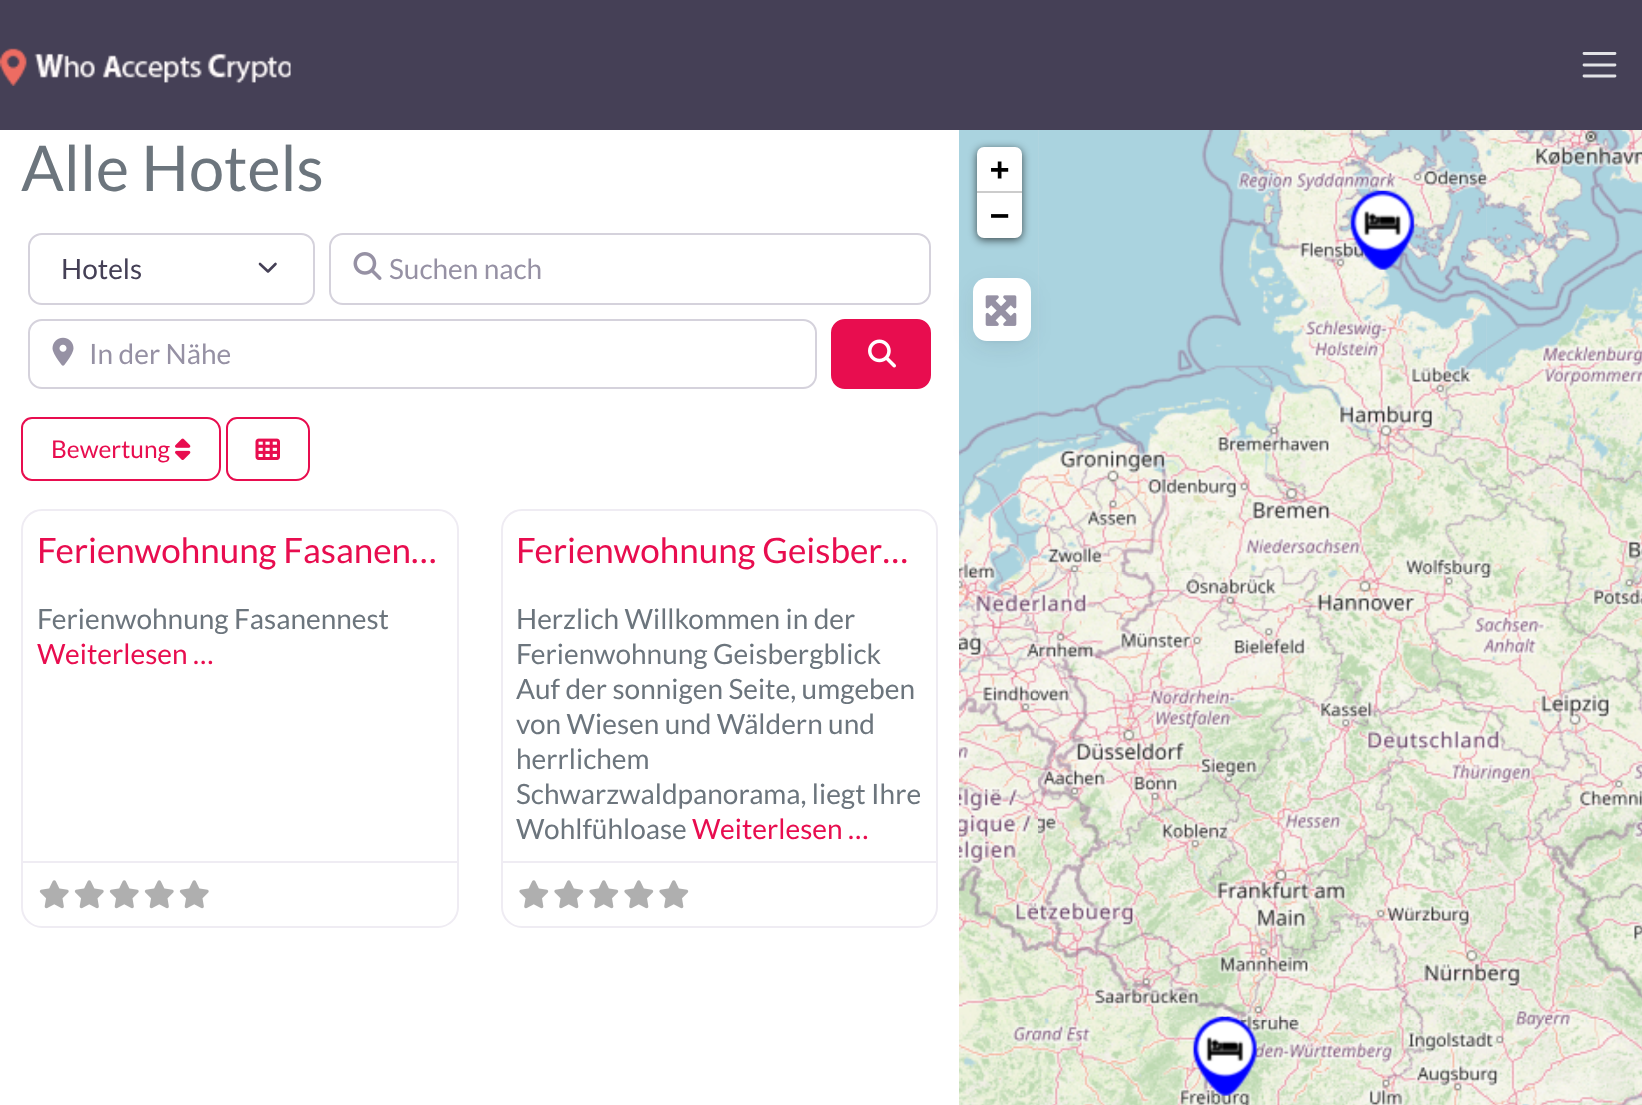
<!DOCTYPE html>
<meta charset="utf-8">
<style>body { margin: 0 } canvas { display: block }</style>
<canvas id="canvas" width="1642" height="1105"></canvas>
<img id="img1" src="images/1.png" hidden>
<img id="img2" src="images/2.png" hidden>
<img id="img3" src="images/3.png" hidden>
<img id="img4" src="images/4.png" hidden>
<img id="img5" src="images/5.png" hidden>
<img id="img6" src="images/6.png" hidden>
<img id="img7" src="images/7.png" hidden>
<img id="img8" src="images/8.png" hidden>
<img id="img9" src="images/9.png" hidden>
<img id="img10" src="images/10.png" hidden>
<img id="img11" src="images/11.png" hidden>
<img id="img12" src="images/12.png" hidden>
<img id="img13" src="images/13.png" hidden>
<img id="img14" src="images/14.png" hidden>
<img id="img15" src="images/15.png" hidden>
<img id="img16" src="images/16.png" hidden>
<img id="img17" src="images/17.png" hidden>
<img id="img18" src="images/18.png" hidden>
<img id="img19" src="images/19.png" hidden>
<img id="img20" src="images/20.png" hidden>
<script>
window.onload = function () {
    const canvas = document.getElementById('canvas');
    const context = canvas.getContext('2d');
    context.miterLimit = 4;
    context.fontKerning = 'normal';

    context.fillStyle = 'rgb(255, 255, 255)';
    context.fillRect(0, 0, 1642, 1105);
    context.fillStyle = 'rgb(69, 64, 86)';
    context.fillRect(0, 0, 1642, 130);
    context.drawImage(document.getElementById('img1'), 0, 48, 291, 38);
    context.beginPath();
    context.moveTo(1584, 53.5);
    context.lineTo(1615, 53.5);
    context.moveTo(1584, 65);
    context.lineTo(1615, 65);
    context.moveTo(1584, 76);
    context.lineTo(1615, 76);
    context.strokeStyle = 'rgb(227, 226, 230)';
    context.lineWidth = 2.8;
    context.lineCap = 'round';
    context.stroke();
    context.beginPath();
    context.moveTo(260, 264);
    context.lineTo(268, 271.5);
    context.lineTo(275.5, 264);
    context.strokeStyle = 'rgb(69, 64, 86)';
    context.lineWidth = 2.6;
    context.lineJoin = 'round';
    context.stroke();
    context.beginPath();
    context.roundRect(29, 234, 285, 70, 13);
    context.strokeStyle = 'rgb(213, 210, 220)';
    context.lineWidth = 2;
    context.lineJoin = 'miter';
    context.stroke();
    context.beginPath();
    context.roundRect(330, 234, 600, 70, 13);
    context.stroke();
    context.drawImage(document.getElementById('img2'), 353, 252, 29, 28);
    context.beginPath();
    context.roundRect(29, 320, 787, 68, 13);
    context.stroke();
    context.drawImage(document.getElementById('img3'), 52, 337, 22, 29);
    context.fillStyle = 'rgb(232, 13, 79)';
    context.beginPath();
    context.roundRect(832, 320, 98, 68, 13);
    context.fill();
    context.strokeStyle = 'rgb(232, 13, 79)';
    context.stroke();
    context.drawImage(document.getElementById('img4'), 868, 339, 28, 29);
    context.beginPath();
    context.roundRect(22, 418, 198, 62, [10, 13, 13, 10]);
    context.stroke();
    context.drawImage(document.getElementById('img5'), 175, 438, 16, 22);
    context.beginPath();
    context.roundRect(227, 418, 82, 62, [10, 13, 13, 10]);
    context.stroke();
    context.drawImage(document.getElementById('img6'), 255, 438, 25, 22);
    context.beginPath();
    context.roundRect(22, 510, 436, 417, 20);
    context.strokeStyle = 'rgb(239, 236, 243)';
    context.stroke();
    context.fillStyle = 'rgb(239, 236, 243)';
    context.fillRect(23, 861, 434, 2);
    context.drawImage(document.getElementById('img7'), 39, 880, 30, 29);
    context.drawImage(document.getElementById('img7'), 74, 880, 30, 29);
    context.drawImage(document.getElementById('img7'), 109, 880, 30, 29);
    context.drawImage(document.getElementById('img7'), 144, 880, 30, 29);
    context.drawImage(document.getElementById('img7'), 179, 880, 30, 29);
    context.beginPath();
    context.roundRect(502, 510, 435, 417, 20);
    context.stroke();
    context.fillRect(502, 861, 434, 2);
    context.drawImage(document.getElementById('img8'), 519, 880, 30, 29);
    context.drawImage(document.getElementById('img8'), 554, 880, 30, 29);
    context.drawImage(document.getElementById('img8'), 589, 880, 30, 29);
    context.drawImage(document.getElementById('img8'), 624, 880, 30, 29);
    context.drawImage(document.getElementById('img8'), 659, 880, 30, 29);
    context.fillStyle = 'rgb(221, 221, 221)';
    context.fillRect(1038, 130, 449, 975);
    context.drawImage(document.getElementById('img9'), 959, 130, 79, 442);
    context.drawImage(document.getElementById('img10'), 1038, 130, 448, 442);
    context.drawImage(document.getElementById('img11'), 1485, 130, 157, 442);
    context.drawImage(document.getElementById('img12'), 959, 572, 79, 448);
    context.drawImage(document.getElementById('img13'), 1038, 572, 448, 449);
    context.drawImage(document.getElementById('img14'), 1485, 572, 157, 448);
    context.drawImage(document.getElementById('img15'), 959, 1020, 79, 85);
    context.drawImage(document.getElementById('img16'), 1038, 1020, 448, 85);
    context.drawImage(document.getElementById('img17'), 1485, 1020, 157, 85);
    context.drawImage(document.getElementById('img18'), 1350, 190, 65, 80);
    context.drawImage(document.getElementById('img19'), 1192, 1016, 65, 80);
    context.fillStyle = 'rgba(0, 0, 0, 0.65)';
    context.filter = 'blur(4.5px)';
    context.beginPath();
    context.roundRect(977, 149, 45, 91, 7);
    context.fill();
    context.filter = 'none';
    context.fillStyle = 'rgb(255, 255, 255)';
    context.beginPath();
    context.roundRect(977, 147, 45, 46, [7, 7, 0, 0]);
    context.fill();
    context.fillStyle = 'rgb(204, 204, 204)';
    context.fillRect(977, 191, 45, 2);
    context.fillStyle = 'rgb(255, 255, 255)';
    context.beginPath();
    context.roundRect(977, 193, 45, 45, [0, 0, 7, 7]);
    context.fill();
    context.fillStyle = 'rgba(31, 27, 45, 0.08)';
    context.filter = 'blur(10.5px)';
    context.beginPath();
    context.roundRect(973, 285, 58, 63, 14);
    context.fill();
    context.filter = 'none';
    context.filter = 'blur(2px)';
    context.beginPath();
    context.roundRect(977, 285, 50, 56, 11);
    context.fill();
    context.filter = 'none';
    context.fillStyle = 'rgb(255, 255, 255)';
    context.beginPath();
    context.roundRect(973, 278, 58, 63, 14);
    context.fill();
    context.drawImage(document.getElementById('img20'), 985, 295, 32, 31);
    context.font = '63px Lato';
    context.fillStyle = 'rgb(108, 117, 125)';
    context.fillText('Alle Hotels', 21, 191);
    context.font = '28px Lato';
    context.fillStyle = 'rgb(69, 64, 86)';
    context.fillText('Hotels', 61, 279);
    context.fillStyle = 'rgb(150, 145, 164)';
    context.fillText('Suchen nach', 389, 279);
    context.fillText('In der Nähe', 89, 364);
    context.font = '24.5px Lato';
    context.fillStyle = 'rgb(232, 13, 79)';
    context.fillText('Bewertung', 51, 458);
    context.font = '35px Lato';
    context.fillText('Ferienwohnung Fasanen…', 37, 563);
    context.font = '28px Lato';
    context.fillStyle = 'rgb(108, 117, 125)';
    context.fillText('Ferienwohnung Fasanennest', 37, 629);
    context.fillStyle = 'rgb(232, 13, 79)';
    context.fillText('Weiterlesen …', 37, 664);
    context.font = '35px Lato';
    context.fillText('Ferienwohnung Geisber…', 516, 563);
    context.font = '28px Lato';
    context.fillStyle = 'rgb(108, 117, 125)';
    context.fillText('Herzlich Willkommen in der', 516, 629);
    context.fillText('Ferienwohnung Geisbergblick', 516, 664);
    context.fillText('Auf der sonnigen Seite, umgeben', 516, 699);
    context.fillText('von Wiesen und Wäldern und', 516, 734);
    context.fillText('herrlichem', 516, 769);
    context.fillText('Schwarzwaldpanorama, liegt Ihre', 516, 804);
    context.fillText('Wohlfühloase', 516, 839);
    context.fillStyle = 'rgb(232, 13, 79)';
    context.fillText('Weiterlesen …', 692, 839);
    context.font = 'bold 32px DejaVu Sans Mono';
    context.fillStyle = 'rgb(0, 0, 0)';
    context.fillText('+', 990, 180);
    context.fillText('−', 990, 226);
};
</script>
